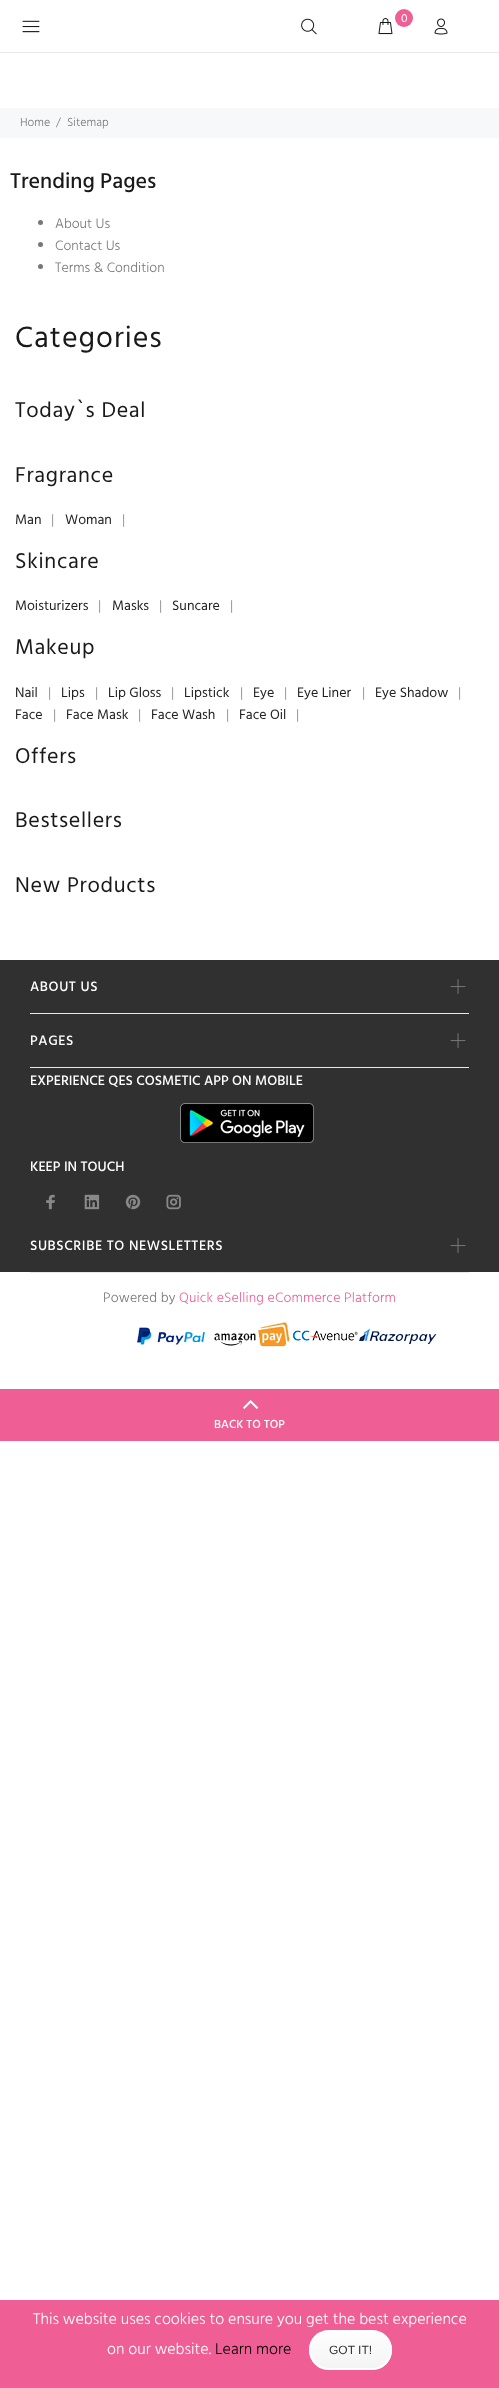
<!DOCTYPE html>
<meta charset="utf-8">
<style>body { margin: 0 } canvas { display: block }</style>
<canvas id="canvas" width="499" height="2388"></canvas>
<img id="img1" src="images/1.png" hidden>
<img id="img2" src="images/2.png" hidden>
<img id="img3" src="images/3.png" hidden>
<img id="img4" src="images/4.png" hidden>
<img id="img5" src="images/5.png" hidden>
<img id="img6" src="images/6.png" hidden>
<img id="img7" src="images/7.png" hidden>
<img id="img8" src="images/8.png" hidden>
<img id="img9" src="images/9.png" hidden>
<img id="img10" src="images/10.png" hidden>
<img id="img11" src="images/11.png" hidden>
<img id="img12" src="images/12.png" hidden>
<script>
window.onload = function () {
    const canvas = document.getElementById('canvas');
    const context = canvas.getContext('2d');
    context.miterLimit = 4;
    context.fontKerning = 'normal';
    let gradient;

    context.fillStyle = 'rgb(255, 255, 255)';
    context.fillRect(0, 0, 499, 2388);
    context.drawImage(document.getElementById('img1'), 22, 20, 18, 13);
    context.drawImage(document.getElementById('img2'), 301, 18, 16, 17);
    context.drawImage(document.getElementById('img3'), 378, 18, 15, 17);
    context.fillStyle = 'rgb(239, 94, 149)';
    context.beginPath();
    context.arc(404, 18, 9, 0, 2 * Math.PI);
    context.fill();
    context.drawImage(document.getElementById('img4'), 434, 18, 14, 17);
    context.fillStyle = 'rgb(233, 231, 231)';
    context.fillRect(0, 52, 499, 1);
    context.fillStyle = 'rgb(247, 248, 250)';
    context.fillRect(0, 108, 499, 30);
    context.fillStyle = 'rgb(119, 119, 119)';
    context.beginPath();
    context.arc(40.5, 222.5, 2.5, 0, 2 * Math.PI);
    context.fill();
    context.beginPath();
    context.arc(40.5, 244.5, 2.5, 0, 2 * Math.PI);
    context.fill();
    context.beginPath();
    context.arc(40.5, 266.5, 2.5, 0, 2 * Math.PI);
    context.fill();
    context.fillStyle = 'rgb(48, 48, 48)';
    context.fillRect(0, 960, 499, 312);
    context.fillStyle = 'rgb(233, 231, 231)';
    context.fillRect(30, 1013, 439, 1);
    context.drawImage(document.getElementById('img5'), 450, 979, 16, 15);
    context.fillRect(30, 1067, 439, 1);
    context.drawImage(document.getElementById('img5'), 450, 1033, 16, 15);
    context.drawImage(document.getElementById('img6'), 180, 1103, 134, 40);
    context.drawImage(document.getElementById('img7'), 46, 1194, 9, 16);
    context.drawImage(document.getElementById('img8'), 84, 1194, 16, 16);
    context.drawImage(document.getElementById('img9'), 125, 1194, 16, 16);
    context.drawImage(document.getElementById('img10'), 166, 1194, 15, 16);
    context.fillRect(30, 1272, 439, 1);
    context.drawImage(document.getElementById('img5'), 450, 1238, 16, 15);
    context.drawImage(document.getElementById('img11'), 137, 1322, 300, 25);
    context.fillStyle = 'rgb(239, 94, 149)';
    context.fillRect(0, 1389, 499, 52);
    context.drawImage(document.getElementById('img12'), 243, 1400, 16, 9);
    context.fillRect(0, 2300, 499, 88);
    context.save();
    context.beginPath();
    context.roundRect(309, 2330, 83, 40, 20);
    context.clip();
    gradient = context.createLinearGradient(351, 2332, 351, 2368);
    gradient.addColorStop(0, 'rgb(254, 254, 254)');
    gradient.addColorStop(1, 'rgb(244, 244, 244)');
    context.fillStyle = gradient;
    context.fillRect(309, 2332, 83, 36);
    context.restore();
    context.beginPath();
    context.roundRect(310, 2331, 81, 38, 19);
    context.strokeStyle = 'rgb(255, 255, 255)';
    context.lineWidth = 2;
    context.stroke();
    context.font = '12px Hind';
    context.fillStyle = 'rgb(255, 255, 255)';
    context.fillText('0', 401, 22);
    context.font = '300 12px Hind';
    context.fillStyle = 'rgb(119, 119, 119)';
    context.fillText('Home', 20, 126);
    context.fillText('/', 56, 126);
    context.fillText('Sitemap', 67, 126);
    context.font = '500 22px Hind';
    context.fillStyle = 'rgb(25, 25, 25)';
    context.fillText('Trending Pages', 10, 188);
    context.font = '300 14px Hind';
    context.fillStyle = 'rgb(119, 119, 119)';
    context.fillText('About Us', 55, 228);
    context.fillText('Contact Us', 55, 250);
    context.fillText('Terms & Condition', 55, 272);
    context.letterSpacing = '1px';
    context.font = '30px Hind';
    context.fillStyle = 'rgb(25, 25, 25)';
    context.fillText('Categories', 15, 347);
    context.letterSpacing = '0.7px';
    context.font = '22px Hind';
    context.fillText('Today`s Deal', 15, 417);
    context.fillText('Fragrance', 15, 482);
    context.letterSpacing = '0px';
    context.font = '14px Hind';
    context.fillStyle = 'rgb(33, 33, 33)';
    context.fillText('Man', 15, 524);
    context.fillStyle = 'rgb(153, 153, 153)';
    context.fillText('|', 51, 524);
    context.fillStyle = 'rgb(33, 33, 33)';
    context.fillText('Woman', 65, 524);
    context.fillStyle = 'rgb(153, 153, 153)';
    context.fillText('|', 122, 524);
    context.letterSpacing = '0.7px';
    context.font = '22px Hind';
    context.fillStyle = 'rgb(25, 25, 25)';
    context.fillText('Skincare', 15, 568);
    context.letterSpacing = '0px';
    context.font = '14px Hind';
    context.fillStyle = 'rgb(33, 33, 33)';
    context.fillText('Moisturizers', 15, 610);
    context.fillStyle = 'rgb(153, 153, 153)';
    context.fillText('|', 98, 610);
    context.fillStyle = 'rgb(33, 33, 33)';
    context.fillText('Masks', 112, 610);
    context.fillStyle = 'rgb(153, 153, 153)';
    context.fillText('|', 159, 610);
    context.fillStyle = 'rgb(33, 33, 33)';
    context.fillText('Suncare', 172, 610);
    context.fillStyle = 'rgb(153, 153, 153)';
    context.fillText('|', 230, 610);
    context.letterSpacing = '0.7px';
    context.font = '22px Hind';
    context.fillStyle = 'rgb(25, 25, 25)';
    context.fillText('Makeup', 15, 654);
    context.letterSpacing = '0px';
    context.font = '14px Hind';
    context.fillStyle = 'rgb(33, 33, 33)';
    context.fillText('Nail', 15, 697);
    context.fillStyle = 'rgb(153, 153, 153)';
    context.fillText('|', 48, 697);
    context.fillStyle = 'rgb(33, 33, 33)';
    context.fillText('Lips', 61, 697);
    context.fillStyle = 'rgb(153, 153, 153)';
    context.fillText('|', 95, 697);
    context.fillStyle = 'rgb(33, 33, 33)';
    context.fillText('Lip Gloss', 108, 697);
    context.fillStyle = 'rgb(153, 153, 153)';
    context.fillText('|', 171, 697);
    context.fillStyle = 'rgb(33, 33, 33)';
    context.fillText('Lipstick', 184, 697);
    context.fillStyle = 'rgb(153, 153, 153)';
    context.fillText('|', 240, 697);
    context.fillStyle = 'rgb(33, 33, 33)';
    context.fillText('Eye', 253, 697);
    context.fillStyle = 'rgb(153, 153, 153)';
    context.fillText('|', 284, 697);
    context.fillStyle = 'rgb(33, 33, 33)';
    context.fillText('Eye Liner', 297, 697);
    context.fillStyle = 'rgb(153, 153, 153)';
    context.fillText('|', 362, 697);
    context.fillStyle = 'rgb(33, 33, 33)';
    context.fillText('Eye Shadow', 375, 697);
    context.fillStyle = 'rgb(153, 153, 153)';
    context.fillText('|', 458, 697);
    context.fillStyle = 'rgb(33, 33, 33)';
    context.fillText('Face', 15, 719);
    context.fillStyle = 'rgb(153, 153, 153)';
    context.fillText('|', 53, 719);
    context.fillStyle = 'rgb(33, 33, 33)';
    context.fillText('Face Mask', 66, 719);
    context.fillStyle = 'rgb(153, 153, 153)';
    context.fillText('|', 138, 719);
    context.fillStyle = 'rgb(33, 33, 33)';
    context.fillText('Face Wash', 151, 719);
    context.fillStyle = 'rgb(153, 153, 153)';
    context.fillText('|', 226, 719);
    context.fillStyle = 'rgb(33, 33, 33)';
    context.fillText('Face Oil', 239, 719);
    context.fillStyle = 'rgb(153, 153, 153)';
    context.fillText('|', 296, 719);
    context.letterSpacing = '0.7px';
    context.font = '22px Hind';
    context.fillStyle = 'rgb(25, 25, 25)';
    context.fillText('Offers', 15, 763);
    context.fillText('Bestsellers', 15, 827);
    context.fillText('New Products', 15, 892);
    context.letterSpacing = '0.6px';
    context.font = '500 14px Hind';
    context.fillStyle = 'rgb(255, 255, 255)';
    context.fillText('ABOUT US', 30, 991);
    context.fillText('PAGES', 30, 1045);
    context.letterSpacing = '0px';
    context.fillText('EXPERIENCE QES COSMETIC APP ON MOBILE', 30, 1085);
    context.fillText('KEEP IN TOUCH', 30, 1171);
    context.letterSpacing = '0.6px';
    context.fillText('SUBSCRIBE TO NEWSLETTERS', 30, 1250);
    context.letterSpacing = '0.15px';
    context.font = '300 14px Hind';
    context.fillStyle = 'rgb(119, 119, 119)';
    context.fillText('Powered by', 103, 1302);
    context.fillStyle = 'rgb(239, 94, 149)';
    context.fillText('Quick eSelling eCommerce Platform', 179, 1302);
    context.letterSpacing = '0px';
    context.font = '500 12px Hind';
    context.fillStyle = 'rgb(255, 255, 255)';
    context.fillText('BACK TO TOP', 214, 1428);
    context.font = '300 16px Hind';
    context.fillText('This website uses cookies to ensure you get the best experience', 33, 2324);
    context.fillText('on our website.', 107, 2354);
    context.fillStyle = 'rgb(0, 0, 0)';
    context.fillText('Learn more', 215, 2354);
    context.font = '12px Liberation Sans';
    context.fillStyle = 'rgb(51, 51, 51)';
    context.fillText('GOT IT!', 329, 2354);
};
</script>
